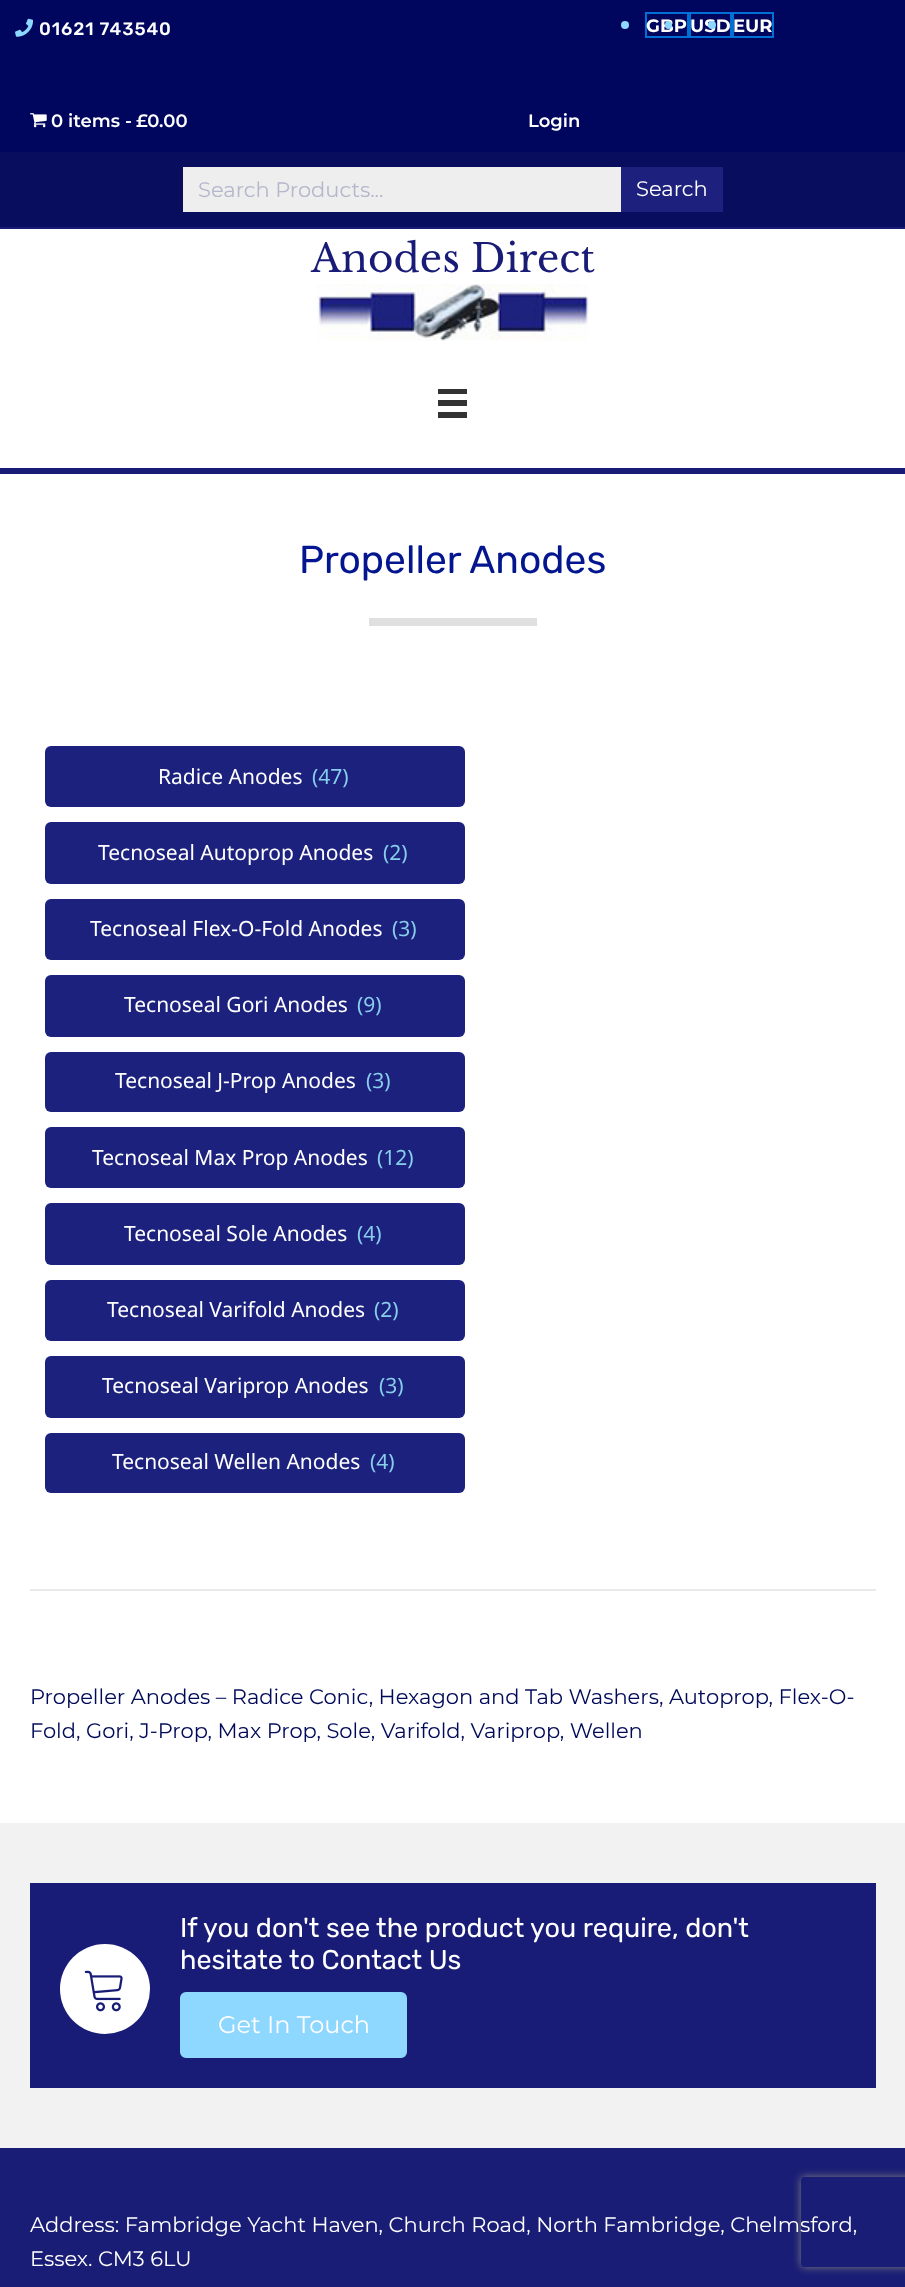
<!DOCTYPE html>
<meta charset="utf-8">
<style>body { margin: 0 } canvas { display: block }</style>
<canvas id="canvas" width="905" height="2287"></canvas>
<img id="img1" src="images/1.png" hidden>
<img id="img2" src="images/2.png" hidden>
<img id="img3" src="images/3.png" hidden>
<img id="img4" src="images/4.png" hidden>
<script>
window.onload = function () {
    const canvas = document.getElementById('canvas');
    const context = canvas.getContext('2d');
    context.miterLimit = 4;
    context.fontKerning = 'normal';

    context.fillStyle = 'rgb(242, 242, 242)';
    context.fillRect(0, 0, 905, 2287);
    context.fillStyle = 'rgb(0, 6, 94)';
    context.fillRect(0, 0, 905, 152);
    context.drawImage(document.getElementById('img1'), 15, 18, 18, 19);
    context.fillStyle = 'rgb(142, 215, 255)';
    context.beginPath();
    context.arc(625, 25, 4, 0, 2 * Math.PI);
    context.fill();
    context.strokeStyle = 'rgb(0, 112, 213)';
    context.lineWidth = 2;
    context.strokeRect(646, 13, 42, 24);
    context.strokeRect(690, 13, 41, 24);
    context.strokeRect(733, 13, 40, 24);
    context.drawImage(document.getElementById('img2'), 30, 113, 17, 15);
    context.fillStyle = 'rgb(8, 14, 93)';
    context.fillRect(0, 152, 905, 75);
    context.fillStyle = 'rgb(238, 238, 238)';
    context.fillRect(183, 167, 438, 45);
    context.fillStyle = 'rgb(29, 33, 125)';
    context.fillRect(621, 167, 102, 45);
    context.fillStyle = 'rgb(255, 255, 255)';
    context.fillRect(0, 229, 905, 239);
    context.fillStyle = 'rgb(25, 28, 119)';
    context.fillRect(0, 227, 905, 2);
    context.fillRect(0, 468, 905, 6);
    context.drawImage(document.getElementById('img3'), 317, 284, 272, 57);
    context.fillStyle = 'rgb(51, 51, 51)';
    context.fillRect(438, 389, 29, 5);
    context.fillRect(438, 400, 29, 6);
    context.fillRect(438, 412, 29, 6);
    context.fillStyle = 'rgb(255, 255, 255)';
    context.fillRect(0, 474, 905, 1349);
    context.fillStyle = 'rgb(224, 224, 224)';
    context.fillRect(369, 618, 168, 8);
    context.fillStyle = 'rgb(28, 33, 126)';
    context.beginPath();
    context.roundRect(45, 746, 420, 61, 6);
    context.fill();
    context.beginPath();
    context.roundRect(45, 822, 420, 62, 6);
    context.fill();
    context.beginPath();
    context.roundRect(45, 899, 420, 61, 6);
    context.fill();
    context.beginPath();
    context.roundRect(45, 975, 420, 62, 6);
    context.fill();
    context.beginPath();
    context.roundRect(45, 1052, 420, 60, 6);
    context.fill();
    context.beginPath();
    context.roundRect(45, 1127, 420, 61, 6);
    context.fill();
    context.beginPath();
    context.roundRect(45, 1203, 420, 62, 6);
    context.fill();
    context.beginPath();
    context.roundRect(45, 1280, 420, 61, 6);
    context.fill();
    context.beginPath();
    context.roundRect(45, 1356, 420, 62, 6);
    context.fill();
    context.beginPath();
    context.roundRect(45, 1433, 420, 60, 6);
    context.fill();
    context.fillStyle = 'rgb(234, 234, 234)';
    context.fillRect(30, 1589, 846, 2);
    context.fillStyle = 'rgb(25, 28, 119)';
    context.fillRect(30, 1883, 846, 205);
    context.fillStyle = 'rgb(255, 255, 255)';
    context.beginPath();
    context.arc(105, 1989, 45, 0, 2 * Math.PI);
    context.fill();
    context.drawImage(document.getElementById('img4'), 84, 1970, 39, 42);
    context.fillStyle = 'rgb(142, 215, 255)';
    context.beginPath();
    context.roundRect(181, 1993, 225, 64, 5);
    context.fill();
    context.strokeStyle = 'rgb(142, 215, 255)';
    context.stroke();
    context.fillStyle = 'rgb(26, 29, 117)';
    context.fillRect(0, 2148, 905, 139);
    context.save();
    context.beginPath();
    context.moveTo(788, 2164);
    context.lineTo(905, 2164);
    context.lineTo(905, 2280);
    context.lineTo(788, 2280);
    context.closePath();
    context.moveTo(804, 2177);
    context.lineTo(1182, 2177);
    context.bezierCurveTo(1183.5, 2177, 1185, 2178.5, 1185, 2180);
    context.lineTo(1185, 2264);
    context.bezierCurveTo(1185, 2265.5, 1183.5, 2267, 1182, 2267);
    context.lineTo(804, 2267);
    context.bezierCurveTo(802.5, 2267, 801, 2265.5, 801, 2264);
    context.lineTo(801, 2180);
    context.bezierCurveTo(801, 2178.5, 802.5, 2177, 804, 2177);
    context.closePath();
    context.clip('evenodd');
    context.fillStyle = 'rgb(128, 128, 128)';
    context.filter = 'blur(4px)';
    context.beginPath();
    context.roundRect(801, 2177, 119, 90, 3);
    context.fill();
    context.filter = 'none';
    context.restore();
    context.letterSpacing = '0.9px';
    context.font = '500 18px Rubik';
    context.fillStyle = 'rgb(255, 255, 255)';
    context.fillText('01621 743540', 39, 35);
    context.letterSpacing = '0px';
    context.font = 'bold 18px Montserrat';
    context.fillText('GBP', 646, 32);
    context.fillStyle = 'rgb(142, 215, 255)';
    context.beginPath();
    context.roundRect(665, 21, 7, 8, 3.5);
    context.fill();
    context.fillStyle = 'rgb(255, 255, 255)';
    context.fillText('USD', 690, 32);
    context.fillStyle = 'rgb(142, 215, 255)';
    context.beginPath();
    context.arc(712, 25, 4, 0, 2 * Math.PI);
    context.fill();
    context.fillStyle = 'rgb(255, 255, 255)';
    context.fillText('EUR', 733, 32);
    context.font = '600 18px Montserrat';
    context.fillText('0 items', 51, 127);
    context.fillText('-', 125, 127);
    context.fillText('£0.00', 136, 127);
    context.fillText('Login', 528, 127);
    context.font = '21px Montserrat';
    context.fillStyle = 'rgb(181, 183, 202)';
    context.fillText('Search Products...', 198, 197);
    context.fillStyle = 'rgb(255, 255, 255)';
    context.fillText('Search', 636, 196);
    context.font = '39px Libre Baskerville';
    context.fillStyle = 'rgb(25, 28, 119)';
    context.fillText('Anodes Direct', 311, 272);
    context.font = '39px Rubik';
    context.fillStyle = 'rgb(3, 22, 143)';
    context.fillText('Propeller Anodes', 299, 573);
    context.font = '21px Noto Sans';
    context.fillStyle = 'rgb(255, 255, 255)';
    context.fillText('Radice Anodes', 158, 784);
    context.fillStyle = 'rgb(135, 206, 235)';
    context.fillText('(47)', 312, 784);
    context.fillStyle = 'rgb(255, 255, 255)';
    context.fillText('Tecnoseal Autoprop Anodes', 98, 860);
    context.fillStyle = 'rgb(135, 206, 235)';
    context.fillText('(2)', 383, 860);
    context.fillStyle = 'rgb(255, 255, 255)';
    context.fillText('Tecnoseal Flex-O-Fold Anodes', 90, 936);
    context.fillStyle = 'rgb(135, 206, 235)';
    context.fillText('(3)', 392, 936);
    context.fillStyle = 'rgb(255, 255, 255)';
    context.fillText('Tecnoseal Gori Anodes', 124, 1012);
    context.fillStyle = 'rgb(135, 206, 235)';
    context.fillText('(9)', 357, 1012);
    context.fillStyle = 'rgb(255, 255, 255)';
    context.fillText('Tecnoseal J-Prop Anodes', 115, 1088);
    context.fillStyle = 'rgb(135, 206, 235)';
    context.fillText('(3)', 366, 1088);
    context.fillStyle = 'rgb(255, 255, 255)';
    context.fillText('Tecnoseal Max Prop Anodes', 92, 1165);
    context.fillStyle = 'rgb(135, 206, 235)';
    context.fillText('(12)', 377, 1165);
    context.fillStyle = 'rgb(255, 255, 255)';
    context.fillText('Tecnoseal Sole Anodes', 124, 1241);
    context.fillStyle = 'rgb(135, 206, 235)';
    context.fillText('(4)', 357, 1241);
    context.fillStyle = 'rgb(255, 255, 255)';
    context.fillText('Tecnoseal Varifold Anodes', 107, 1317);
    context.fillStyle = 'rgb(135, 206, 235)';
    context.fillText('(2)', 374, 1317);
    context.fillStyle = 'rgb(255, 255, 255)';
    context.fillText('Tecnoseal Variprop Anodes', 102, 1393);
    context.fillStyle = 'rgb(135, 206, 235)';
    context.fillText('(3)', 379, 1393);
    context.fillStyle = 'rgb(255, 255, 255)';
    context.fillText('Tecnoseal Wellen Anodes', 112, 1469);
    context.fillStyle = 'rgb(135, 206, 235)';
    context.fillText('(4)', 370, 1469);
    context.font = '21px Montserrat';
    context.fillStyle = 'rgb(0, 10, 89)';
    context.fillText('Propeller Anodes – Radice Conic, Hexagon and Tab Washers, Autoprop, Flex-O-', 30, 1704);
    context.fillText('Fold, Gori, J-Prop, Max Prop, Sole, Varifold, Variprop, Wellen', 30, 1738);
    context.font = '27px Rubik';
    context.fillStyle = 'rgb(255, 255, 255)';
    context.fillText('If you don\'t see the product you require, don\'t', 180, 1937);
    context.fillText('hesitate to Contact Us', 180, 1969);
    context.font = '24px Montserrat';
    context.fillText('Get In Touch', 218, 2033);
    context.font = '21px Montserrat';
    context.fillText('Address: Fambridge Yacht Haven, Church Road, North Fambridge, Chelmsford,', 30, 2232);
    context.fillText('Essex. CM3 6LU', 30, 2266);
};
</script>
